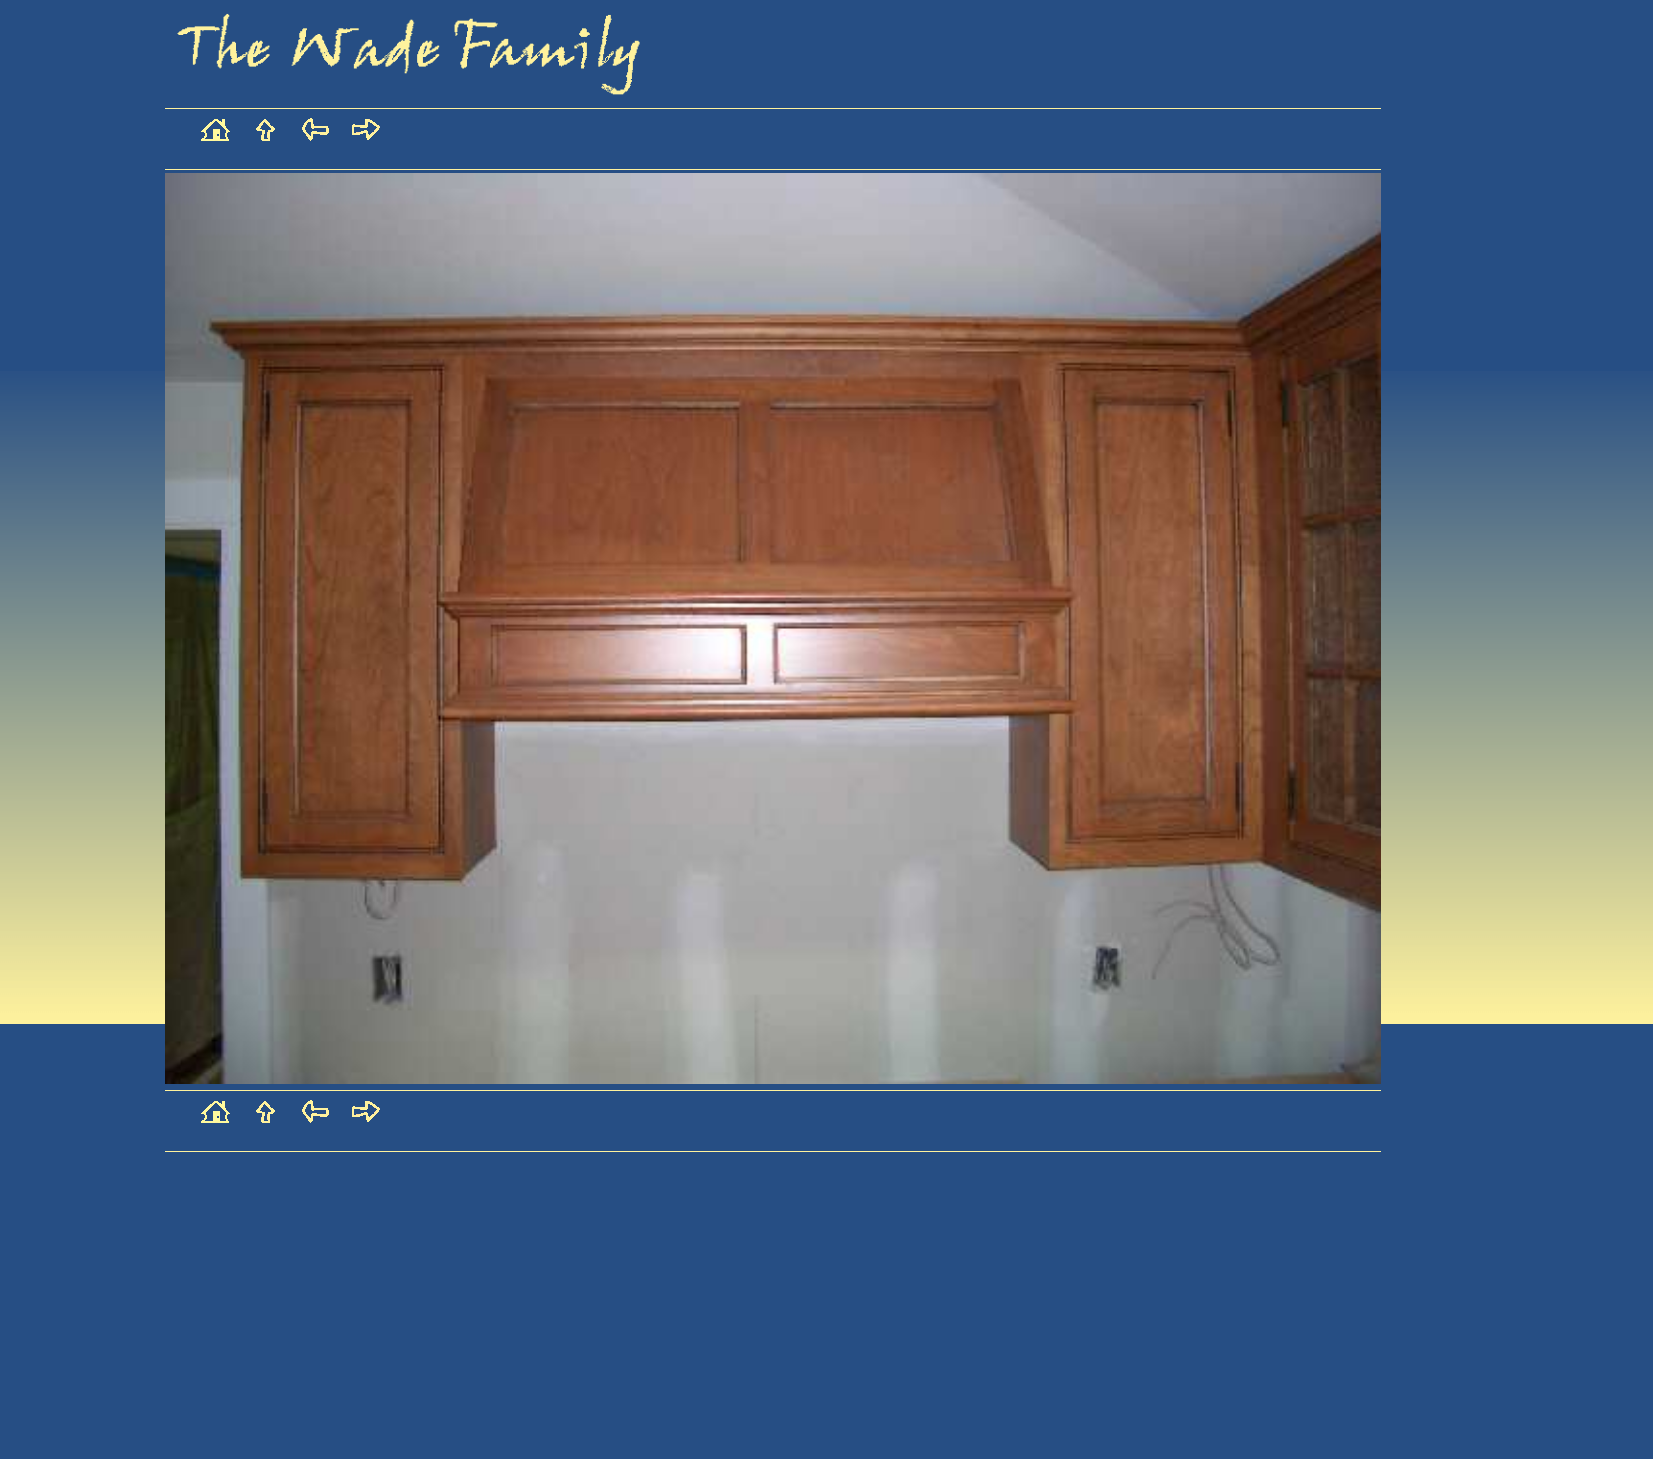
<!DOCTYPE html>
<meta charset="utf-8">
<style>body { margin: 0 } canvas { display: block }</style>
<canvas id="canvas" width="1653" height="1459"></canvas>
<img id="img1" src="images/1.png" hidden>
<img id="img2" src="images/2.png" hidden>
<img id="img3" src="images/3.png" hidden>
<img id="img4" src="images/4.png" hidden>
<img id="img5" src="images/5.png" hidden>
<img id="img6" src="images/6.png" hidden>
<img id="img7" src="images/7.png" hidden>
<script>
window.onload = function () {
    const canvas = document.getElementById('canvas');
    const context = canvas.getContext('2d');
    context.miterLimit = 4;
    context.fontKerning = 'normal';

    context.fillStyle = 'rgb(38, 78, 132)';
    context.fillRect(0, 0, 1653, 1459);
    context.drawImage(document.getElementById('img1'), 0, 371, 1653, 653);
    context.drawImage(document.getElementById('img2'), 177, 13, 463, 82);
    context.fillStyle = 'rgb(255, 242, 157)';
    context.fillRect(165, 108, 1216, 1);
    context.fillRect(165, 169, 1216, 1);
    context.drawImage(document.getElementById('img3'), 201, 119, 29, 22);
    context.drawImage(document.getElementById('img4'), 256, 119, 19, 22);
    context.drawImage(document.getElementById('img5'), 302, 118, 27, 23);
    context.drawImage(document.getElementById('img6'), 352, 119, 28, 21);
    context.drawImage(document.getElementById('img7'), 165, 173, 1216, 911);
    context.fillRect(165, 1090, 1216, 1);
    context.fillRect(165, 1151, 1216, 1);
    context.drawImage(document.getElementById('img3'), 201, 1101, 29, 22);
    context.drawImage(document.getElementById('img4'), 256, 1101, 19, 22);
    context.drawImage(document.getElementById('img5'), 302, 1100, 27, 23);
    context.drawImage(document.getElementById('img6'), 352, 1101, 28, 21);
};
</script>
